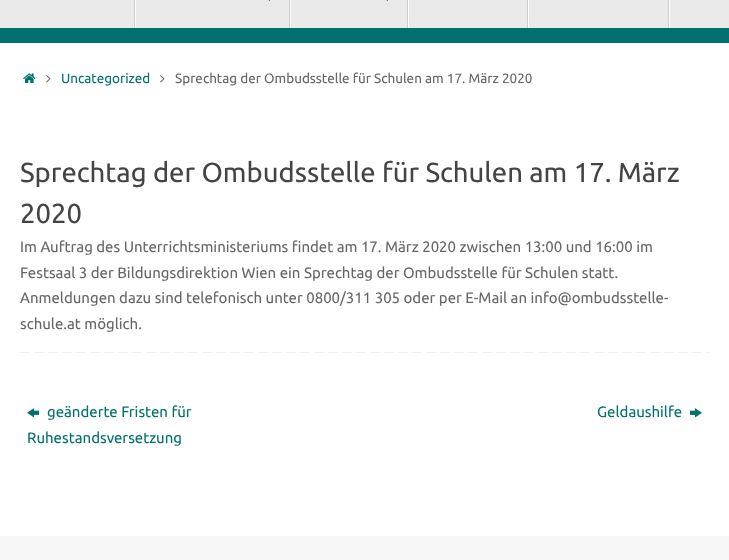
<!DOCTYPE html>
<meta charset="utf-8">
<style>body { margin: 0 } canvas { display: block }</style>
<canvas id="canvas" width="729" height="560"></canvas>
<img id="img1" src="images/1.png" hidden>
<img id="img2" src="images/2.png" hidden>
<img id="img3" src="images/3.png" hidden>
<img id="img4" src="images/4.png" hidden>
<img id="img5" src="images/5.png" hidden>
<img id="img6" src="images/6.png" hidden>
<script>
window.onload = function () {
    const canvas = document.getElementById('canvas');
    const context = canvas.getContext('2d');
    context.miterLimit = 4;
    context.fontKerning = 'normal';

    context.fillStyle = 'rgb(0, 112, 112)';
    context.fillRect(0, 0, 729, 560);
    context.fillStyle = 'rgb(234, 234, 234)';
    context.fillRect(0, 0, 729, 28);
    context.fillStyle = 'rgb(255, 255, 255)';
    context.fillRect(135, 0, 1, 28);
    context.fillStyle = 'rgb(204, 204, 204)';
    context.fillRect(134, 0, 1, 28);
    context.fillStyle = 'rgb(255, 255, 255)';
    context.fillRect(290, 0, 1, 28);
    context.fillStyle = 'rgb(204, 204, 204)';
    context.fillRect(289, 0, 1, 28);
    context.drawImage(document.getElementById('img1'), 268, 0, 3, 1);
    context.fillStyle = 'rgb(255, 255, 255)';
    context.fillRect(408, 0, 1, 28);
    context.fillStyle = 'rgb(204, 204, 204)';
    context.fillRect(407, 0, 1, 28);
    context.drawImage(document.getElementById('img1'), 386, 0, 3, 1);
    context.fillStyle = 'rgb(255, 255, 255)';
    context.fillRect(528, 0, 1, 28);
    context.fillStyle = 'rgb(204, 204, 204)';
    context.fillRect(527, 0, 1, 28);
    context.fillStyle = 'rgb(255, 255, 255)';
    context.fillRect(669, 0, 1, 28);
    context.fillStyle = 'rgb(204, 204, 204)';
    context.fillRect(668, 0, 1, 28);
    context.fillStyle = 'rgb(255, 255, 255)';
    context.fillRect(0, 43, 729, 493);
    context.drawImage(document.getElementById('img2'), 23, 73, 13, 11);
    context.drawImage(document.getElementById('img3'), 46, 75, 5, 8);
    context.drawImage(document.getElementById('img3'), 160, 75, 5, 8);
    context.drawImage(document.getElementById('img4'), 20, 352, 689, 1);
    context.drawImage(document.getElementById('img5'), 27, 408, 12, 10);
    context.drawImage(document.getElementById('img6'), 690, 408, 12, 10);
    context.fillStyle = 'rgb(247, 247, 247)';
    context.fillRect(0, 536, 729, 24);
    context.font = '13.5px Ubuntu';
    context.fillStyle = 'rgb(0, 112, 112)';
    context.fillText('Uncategorized', 61, 83);
    context.fillStyle = 'rgb(102, 102, 102)';
    context.fillText('Sprechtag der Ombudsstelle für Schulen am 17. März 2020', 175, 83);
    context.font = '27.5px Ubuntu';
    context.fillStyle = 'rgb(68, 68, 68)';
    context.fillText('Sprechtag der Ombudsstelle für Schulen am 17. März', 20, 182);
    context.fillText('2020', 20, 223);
    context.font = '15px Ubuntu';
    context.fillStyle = 'rgb(102, 102, 102)';
    context.fillText('Im Auftrag des Unterrichtsministeriums findet am 17. März 2020 zwischen 13:00 und 16:00 im', 20, 252);
    context.fillText('Festsaal 3 der Bildungsdirektion Wien ein Sprechtag der Ombudsstelle für Schulen statt.', 20, 278);
    context.fillText('Anmeldungen dazu sind telefonisch unter 0800/311 305 oder per E-Mail an info@ombudsstelle-', 20, 303);
    context.fillText('schule.at möglich.', 20, 329);
    context.fillStyle = 'rgb(0, 112, 112)';
    context.fillText('geänderte Fristen für', 47, 417);
    context.fillText('Ruhestandsversetzung', 27, 443);
    context.fillText('Geldaushilfe', 597, 417);
};
</script>
